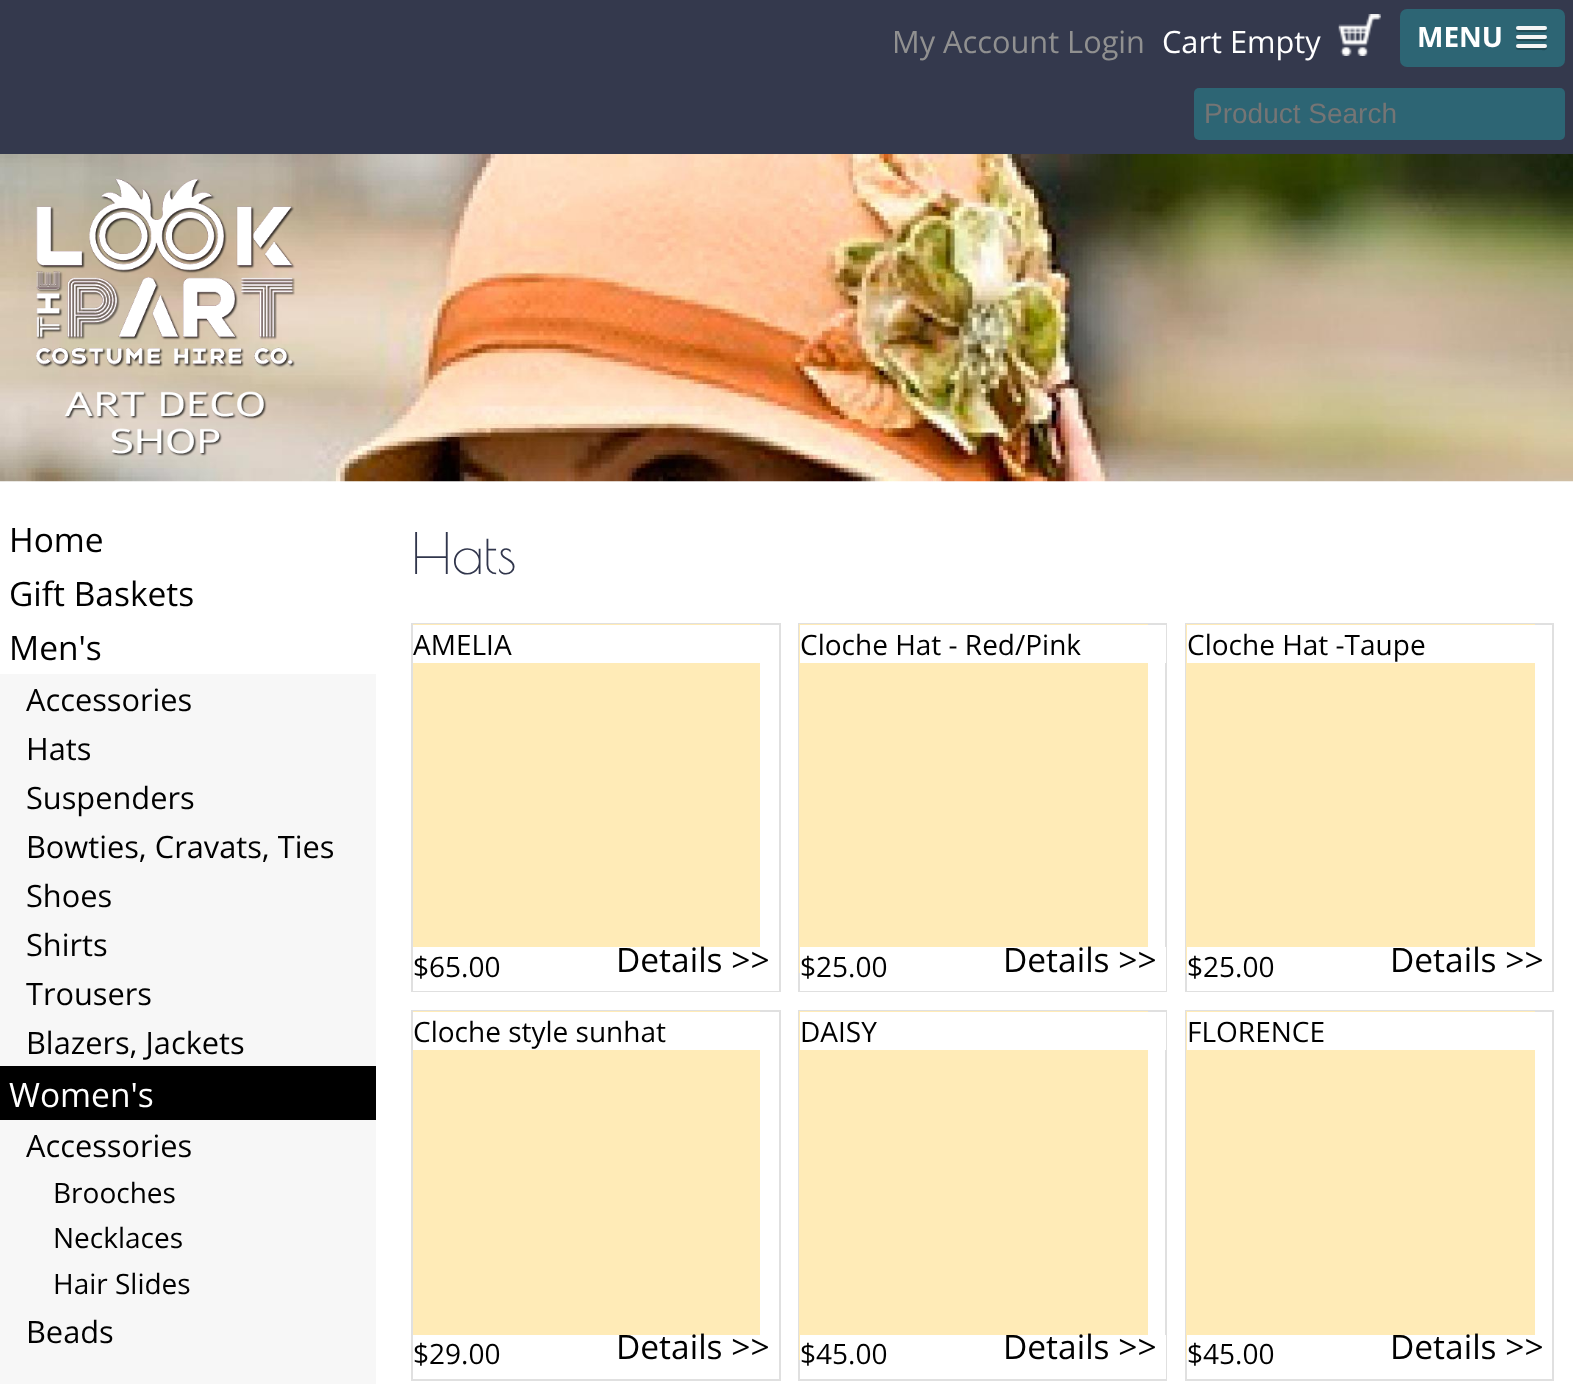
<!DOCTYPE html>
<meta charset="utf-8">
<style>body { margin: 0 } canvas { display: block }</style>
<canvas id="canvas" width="1573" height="1384"></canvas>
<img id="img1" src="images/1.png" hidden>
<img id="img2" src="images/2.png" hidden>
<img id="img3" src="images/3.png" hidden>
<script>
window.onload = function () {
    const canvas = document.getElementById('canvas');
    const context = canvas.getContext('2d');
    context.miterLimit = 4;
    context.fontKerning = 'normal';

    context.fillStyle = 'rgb(52, 57, 77)';
    context.fillRect(0, 0, 1573, 1384);
    context.drawImage(document.getElementById('img1'), 1338, 14, 43, 42);
    context.fillStyle = 'rgb(45, 101, 116)';
    context.beginPath();
    context.roundRect(1400, 9, 165, 58, 7);
    context.fill();
    context.fillStyle = 'rgb(34, 76, 87)';
    context.beginPath();
    context.moveTo(1516, 29.5);
    context.bezierCurveTo(1515, 33, 1521.5, 32, 1522.5, 32);
    context.lineTo(1540.5, 32);
    context.bezierCurveTo(1541, 32, 1549, 33, 1546.5, 29);
    context.lineTo(1545.5, 29.5);
    context.lineTo(1517, 29.5);
    context.closePath();
    context.fill();
    context.fillStyle = 'rgb(245, 245, 245)';
    context.beginPath();
    context.roundRect(1516, 26, 31, 4, 2);
    context.fill();
    context.fillStyle = 'rgb(34, 76, 87)';
    context.beginPath();
    context.moveTo(1516, 38);
    context.bezierCurveTo(1514.5, 42, 1521.5, 41, 1522.5, 41);
    context.lineTo(1540.5, 41);
    context.bezierCurveTo(1541.5, 41, 1546.5, 42, 1547, 39.5);
    context.lineTo(1546.5, 38);
    context.lineTo(1545.5, 38.5);
    context.bezierCurveTo(1543, 39, 1517, 39, 1516, 38);
    context.closePath();
    context.fill();
    context.fillStyle = 'rgb(245, 245, 245)';
    context.beginPath();
    context.roundRect(1516, 35, 31, 4, 2);
    context.fill();
    context.fillStyle = 'rgb(34, 76, 87)';
    context.beginPath();
    context.moveTo(1516.5, 47);
    context.bezierCurveTo(1514, 51, 1522, 50, 1522.5, 50);
    context.lineTo(1540.5, 50);
    context.bezierCurveTo(1541.5, 50, 1546.5, 51, 1547, 48.5);
    context.bezierCurveTo(1547, 48, 1547, 47, 1546.5, 46.5);
    context.lineTo(1545.5, 47);
    context.bezierCurveTo(1543, 47.5, 1517, 47.5, 1516.5, 47);
    context.closePath();
    context.fill();
    context.fillStyle = 'rgb(245, 245, 245)';
    context.beginPath();
    context.roundRect(1516, 44, 31, 4, 2);
    context.fill();
    context.fillStyle = 'rgb(45, 101, 116)';
    context.beginPath();
    context.roundRect(1194, 88, 371, 52, 5);
    context.fill();
    context.fillStyle = 'rgb(255, 255, 255)';
    context.fillRect(0, 481, 1573, 903);
    context.drawImage(document.getElementById('img2'), 0, 154, 1573, 328);
    context.drawImage(document.getElementById('img3'), 36, 178, 259, 279);
    context.fillStyle = 'rgb(247, 247, 247)';
    context.fillRect(0, 674, 376, 392);
    context.fillStyle = 'rgb(0, 0, 0)';
    context.fillRect(0, 1066, 376, 54);
    context.fillStyle = 'rgb(247, 247, 247)';
    context.fillRect(0, 1120, 376, 264);
    context.strokeStyle = 'rgb(224, 224, 224)';
    context.lineWidth = 2;
    context.strokeRect(412, 624, 368, 367);
    context.fillStyle = 'rgb(255, 235, 183)';
    context.fillRect(413, 624, 347, 323);
    context.fillStyle = 'rgb(255, 255, 255)';
    context.fillRect(413, 625, 347, 38);
    context.fillRect(413, 990, 366, 1);
    context.strokeRect(799, 624, 367, 367);
    context.fillStyle = 'rgb(255, 235, 183)';
    context.fillRect(799, 624, 349, 349);
    context.fillStyle = 'rgb(255, 255, 255)';
    context.fillRect(800, 625, 366, 38);
    context.fillRect(800, 947, 366, 44);
    context.strokeRect(1186, 624, 367, 367);
    context.fillStyle = 'rgb(255, 235, 183)';
    context.fillRect(1186, 624, 349, 349);
    context.fillStyle = 'rgb(255, 255, 255)';
    context.fillRect(1187, 625, 348, 38);
    context.fillRect(1187, 947, 365, 44);
    context.strokeRect(412, 1011, 368, 369);
    context.fillStyle = 'rgb(255, 235, 183)';
    context.fillRect(413, 1011, 347, 324);
    context.fillStyle = 'rgb(255, 255, 255)';
    context.fillRect(413, 1012, 347, 38);
    context.strokeRect(799, 1011, 367, 369);
    context.fillStyle = 'rgb(255, 235, 183)';
    context.fillRect(799, 1011, 349, 349);
    context.fillStyle = 'rgb(255, 255, 255)';
    context.fillRect(800, 1012, 366, 38);
    context.fillRect(800, 1335, 366, 44);
    context.strokeRect(1186, 1011, 367, 369);
    context.fillStyle = 'rgb(255, 235, 183)';
    context.fillRect(1186, 1011, 349, 349);
    context.fillStyle = 'rgb(255, 255, 255)';
    context.fillRect(1187, 1012, 348, 38);
    context.fillRect(1187, 1335, 348, 25);
    context.font = '30.75px Open Sans';
    context.fillStyle = 'rgb(144, 144, 144)';
    context.fillText('My Account Login', 892, 53);
    context.fillStyle = 'rgb(255, 255, 255)';
    context.fillText('Cart Empty', 1162, 53);
    context.font = 'bold 28px Open Sans';
    context.fillText('MENU', 1417, 47);
    context.font = '28px Liberation Sans';
    context.fillStyle = 'rgb(117, 117, 117)';
    context.fillText('Product Search', 1204, 123);
    context.font = '33.5px Open Sans';
    context.fillStyle = 'rgb(0, 0, 0)';
    context.fillText('Home', 9, 552);
    context.fillText('Gift Baskets', 9, 606);
    context.fillText('Men\'s', 9, 660);
    context.font = '30.75px Open Sans';
    context.fillText('Accessories', 26, 711);
    context.fillText('Hats', 26, 760);
    context.fillText('Suspenders', 26, 809);
    context.fillText('Bowties, Cravats, Ties', 26, 858);
    context.fillText('Shoes', 26, 907);
    context.fillText('Shirts', 26, 956);
    context.fillText('Trousers', 26, 1005);
    context.fillText('Blazers, Jackets', 26, 1054);
    context.font = '33.5px Open Sans';
    context.fillStyle = 'rgb(255, 255, 255)';
    context.fillText('Women\'s', 9, 1107);
    context.font = '30.75px Open Sans';
    context.fillStyle = 'rgb(0, 0, 0)';
    context.fillText('Accessories', 26, 1157);
    context.font = '28px Open Sans';
    context.fillText('Brooches', 53, 1203);
    context.fillText('Necklaces', 53, 1248);
    context.fillText('Hair Slides', 53, 1294);
    context.font = '30.75px Open Sans';
    context.fillText('Beads', 26, 1343);
    context.font = '56px Poiret One';
    context.fillStyle = 'rgb(49, 54, 76)';
    context.fillText('Hats', 411, 574);
    context.font = '28px Open Sans';
    context.fillStyle = 'rgb(0, 0, 0)';
    context.fillText('AMELIA', 413, 655);
    context.fillText('$65.00', 413, 977);
    context.font = '33.5px Open Sans';
    context.fillText('Details >>', 616, 972);
    context.font = '28px Open Sans';
    context.fillText('Cloche Hat - Red/Pink', 800, 655);
    context.fillText('$25.00', 800, 977);
    context.font = '33.5px Open Sans';
    context.fillText('Details >>', 1003, 972);
    context.font = '28px Open Sans';
    context.fillText('Cloche Hat -Taupe', 1187, 655);
    context.fillText('$25.00', 1187, 977);
    context.font = '33.5px Open Sans';
    context.fillText('Details >>', 1390, 972);
    context.font = '28px Open Sans';
    context.fillText('Cloche style sunhat', 413, 1042);
    context.fillText('$29.00', 413, 1364);
    context.font = '33.5px Open Sans';
    context.fillText('Details >>', 616, 1359);
    context.font = '28px Open Sans';
    context.fillText('DAISY', 800, 1042);
    context.fillText('$45.00', 800, 1364);
    context.font = '33.5px Open Sans';
    context.fillText('Details >>', 1003, 1359);
    context.font = '28px Open Sans';
    context.fillText('FLORENCE', 1187, 1042);
    context.fillText('$45.00', 1187, 1364);
    context.font = '33.5px Open Sans';
    context.fillText('Details >>', 1390, 1359);
};
</script>
